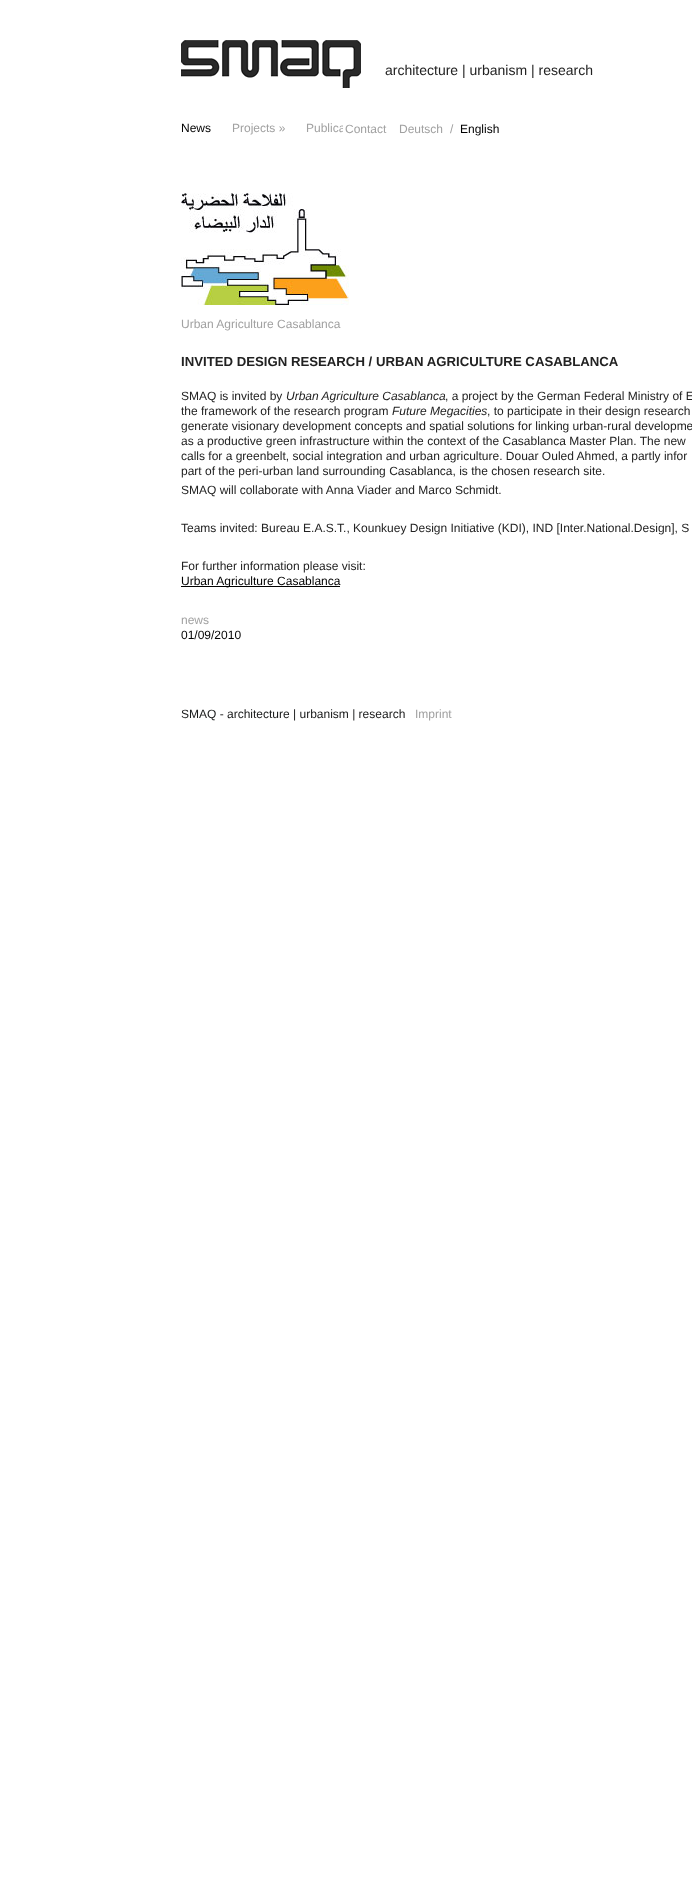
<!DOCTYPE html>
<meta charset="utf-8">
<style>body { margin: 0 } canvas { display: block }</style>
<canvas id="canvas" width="692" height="1882"></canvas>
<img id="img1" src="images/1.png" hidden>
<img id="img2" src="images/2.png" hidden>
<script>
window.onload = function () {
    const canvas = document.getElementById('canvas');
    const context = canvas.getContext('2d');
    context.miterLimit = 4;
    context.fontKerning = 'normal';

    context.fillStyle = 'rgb(255, 255, 255)';
    context.fillRect(0, 0, 692, 1882);
    context.drawImage(document.getElementById('img1'), 181, 40, 180, 48);
    context.drawImage(document.getElementById('img2'), 181, 193, 168, 112);
    context.fillStyle = 'rgb(0, 0, 0)';
    context.fillRect(181, 586, 159, 1);
    context.font = '14px Liberation Sans';
    context.fillStyle = 'rgb(34, 34, 34)';
    context.fillText('architecture | urbanism | research', 385, 75);
    context.font = '12px Liberation Sans';
    context.fillStyle = 'rgb(0, 0, 0)';
    context.fillText('News', 181, 132);
    context.fillStyle = 'rgb(161, 161, 161)';
    context.fillText('Projects »', 232, 132);
    context.fillText('Publica', 306, 132);
    context.fillStyle = 'rgb(255, 255, 255)';
    context.fillRect(343, 125, 3, 7);
    context.fillStyle = 'rgb(161, 161, 161)';
    context.fillText('Contact', 345, 133);
    context.fillText('Deutsch', 399, 133);
    context.fillText('/', 450, 133);
    context.fillStyle = 'rgb(0, 0, 0)';
    context.fillText('English', 460, 133);
    context.fillStyle = 'rgb(161, 161, 161)';
    context.fillText('Urban Agriculture Casablanca', 181, 328);
    context.font = 'bold 13.2px Liberation Sans';
    context.fillStyle = 'rgb(34, 34, 34)';
    context.fillText('INVITED DESIGN RESEARCH / URBAN AGRICULTURE CASABLANCA', 181, 366);
    context.font = '12px Liberation Sans';
    context.fillText('SMAQ is invited by', 181, 400);
    context.font = 'italic 12px Liberation Sans';
    context.fillText('Urban Agriculture Casablanca', 286, 400);
    context.font = '12px Liberation Sans';
    context.fillText(', a project by the German Federal Ministry of E', 445, 400);
    context.fillText('the framework of the research program', 181, 415);
    context.font = 'italic 12px Liberation Sans';
    context.fillText('Future Megacities', 392, 415);
    context.font = '12px Liberation Sans';
    context.fillText(', to participate in their design research', 487, 415);
    context.fillText('generate visionary development concepts and spatial solutions for linking urban-rural developme', 181, 430);
    context.fillText('as a productive green infrastructure within the context of the Casablanca Master Plan. The new', 181, 445);
    context.fillText('calls for a greenbelt, social integration and urban agriculture. Douar Ouled Ahmed, a partly infor', 181, 460);
    context.fillText('part of the peri-urban land surrounding Casablanca, is the chosen research site.', 181, 475);
    context.fillText('SMAQ will collaborate with Anna Viader and Marco Schmidt.', 181, 494);
    context.fillText('Teams invited: Bureau E.A.S.T., Kounkuey Design Initiative (KDI), IND [Inter.National.Design], S', 181, 532);
    context.fillText('For further information please visit:', 181, 570);
    context.fillStyle = 'rgb(0, 0, 0)';
    context.fillText('Urban Agriculture Casablanca', 181, 585);
    context.fillStyle = 'rgb(161, 161, 161)';
    context.fillText('news', 181, 624);
    context.fillStyle = 'rgb(0, 0, 0)';
    context.fillText('01/09/2010', 181, 639);
    context.fillStyle = 'rgb(24, 25, 25)';
    context.fillText('SMAQ - architecture | urbanism | research', 181, 718);
    context.fillStyle = 'rgb(161, 161, 161)';
    context.fillText('Imprint', 415, 718);
};
</script>
